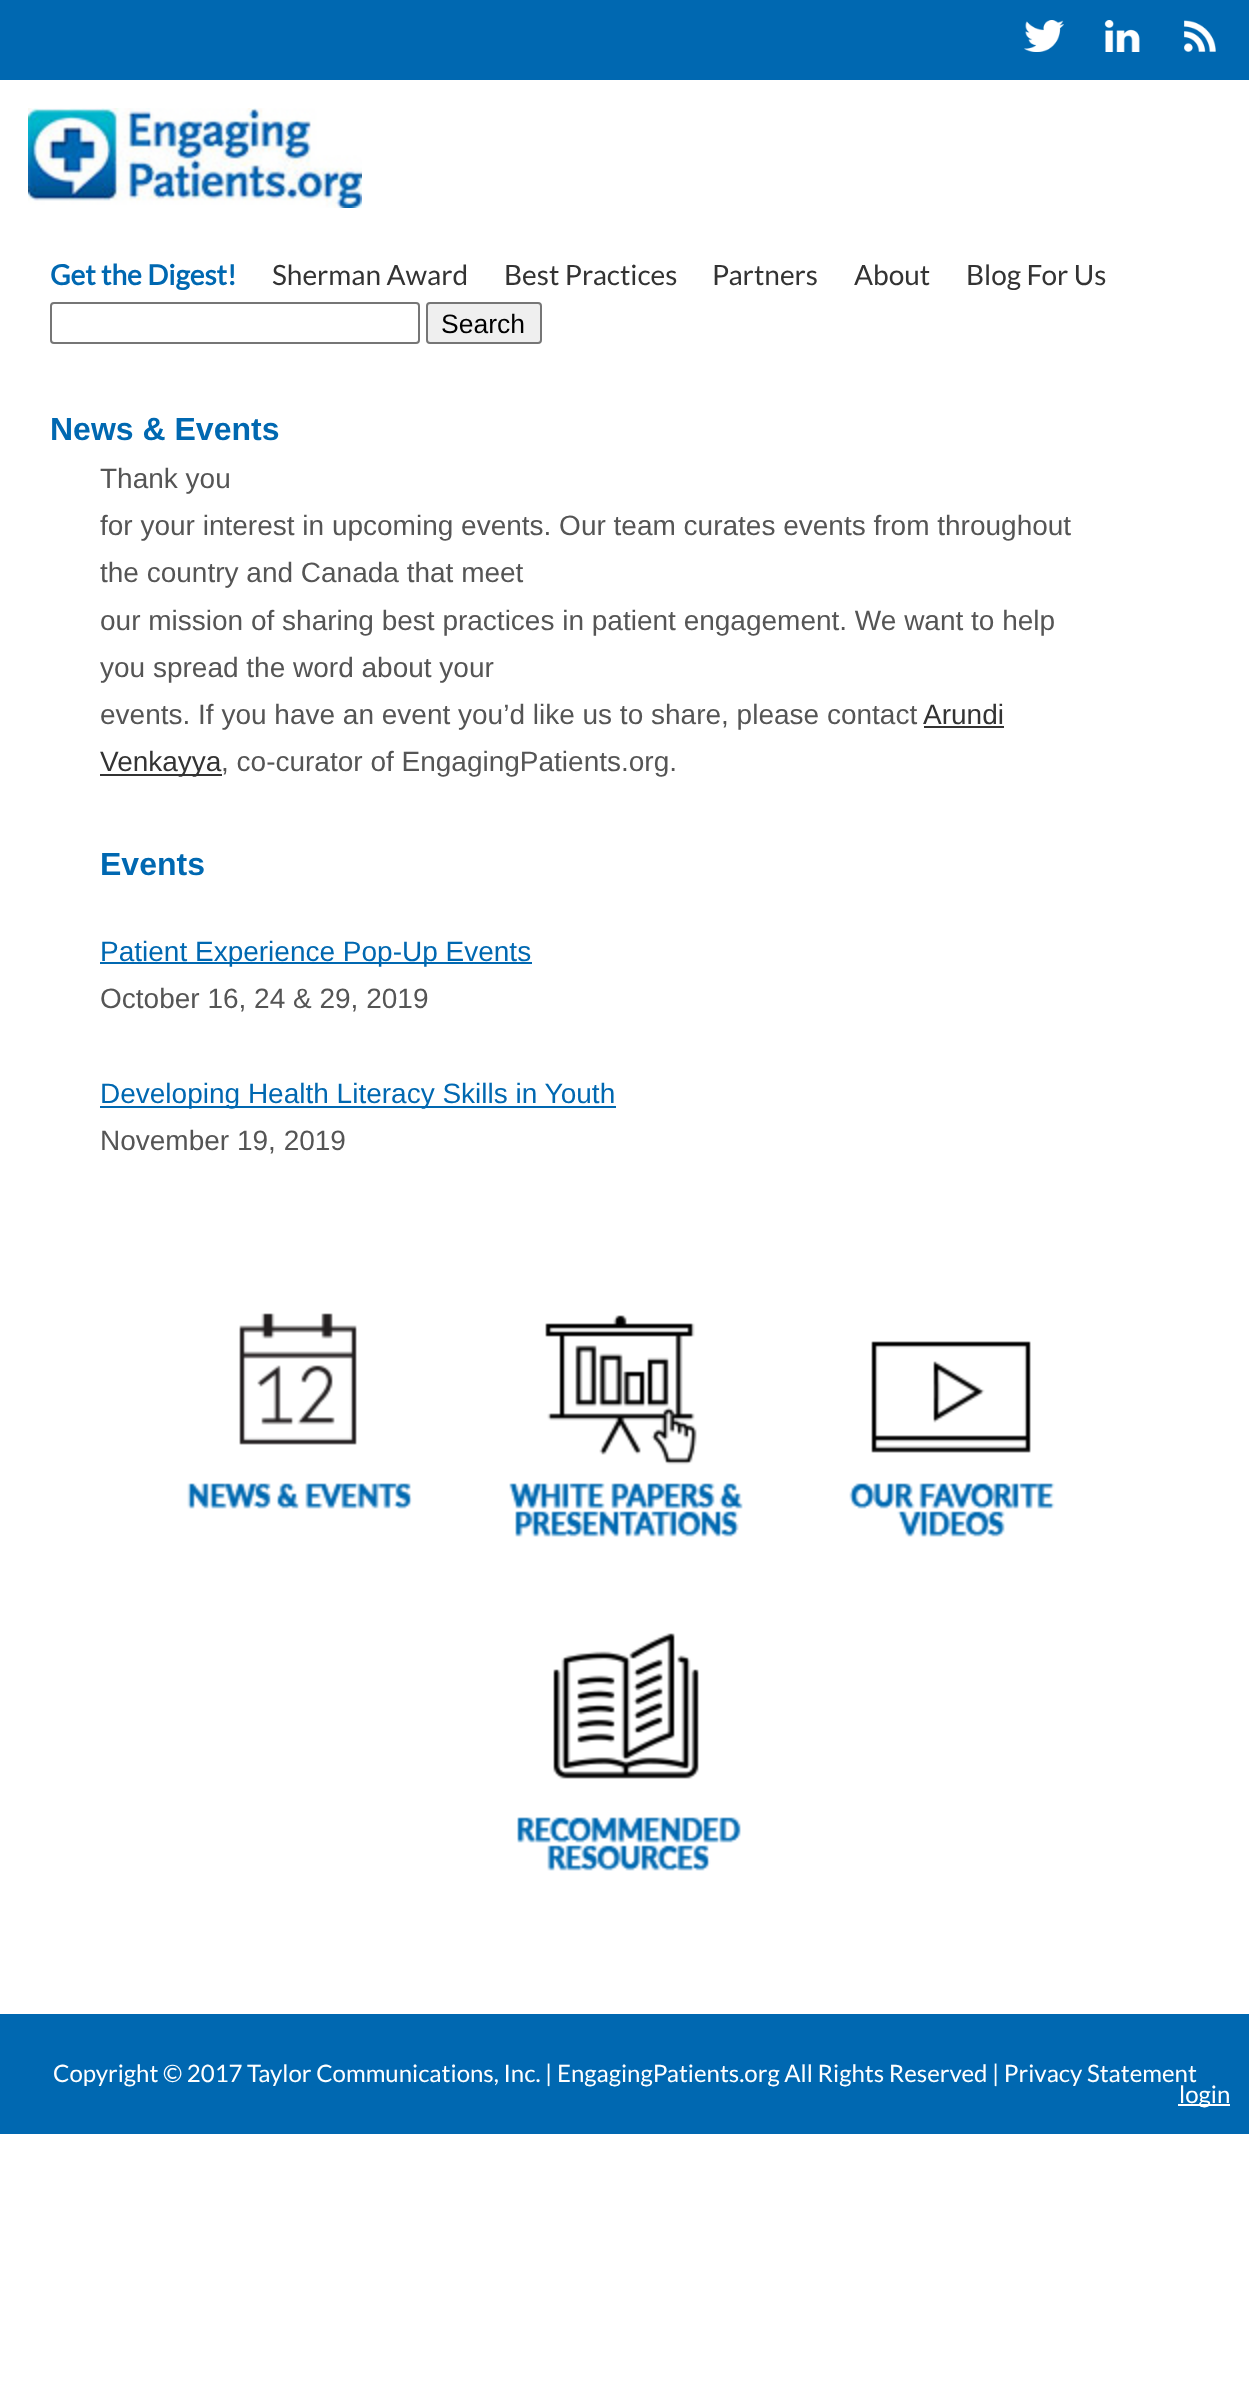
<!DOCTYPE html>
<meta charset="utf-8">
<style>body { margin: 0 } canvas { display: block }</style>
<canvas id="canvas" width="1249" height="2407"></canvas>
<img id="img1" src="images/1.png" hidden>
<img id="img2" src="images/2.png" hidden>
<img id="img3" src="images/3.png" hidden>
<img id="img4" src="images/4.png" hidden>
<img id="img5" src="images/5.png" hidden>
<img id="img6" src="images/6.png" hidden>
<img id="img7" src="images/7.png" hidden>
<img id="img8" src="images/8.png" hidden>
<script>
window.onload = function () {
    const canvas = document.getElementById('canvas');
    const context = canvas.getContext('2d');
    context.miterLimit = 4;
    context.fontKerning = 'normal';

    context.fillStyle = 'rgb(255, 255, 255)';
    context.fillRect(0, 0, 1249, 2407);
    context.fillStyle = 'rgb(0, 104, 177)';
    context.fillRect(0, 0, 1249, 80);
    context.drawImage(document.getElementById('img1'), 1024, 20, 40, 32);
    context.drawImage(document.getElementById('img2'), 1104, 20, 36, 32);
    context.drawImage(document.getElementById('img3'), 1184, 20, 32, 32);
    context.drawImage(document.getElementById('img4'), 28, 108, 334, 100);
    context.beginPath();
    context.roundRect(51, 303, 368, 40, 3);
    context.strokeStyle = 'rgb(118, 118, 118)';
    context.lineWidth = 2;
    context.stroke();
    context.fillStyle = 'rgb(239, 239, 239)';
    context.beginPath();
    context.roundRect(427, 303, 114, 40, 3);
    context.fill();
    context.stroke();
    context.fillStyle = 'rgb(51, 51, 51)';
    context.fillRect(924, 726, 80, 2);
    context.fillRect(100, 774, 122, 2);
    context.fillStyle = 'rgb(0, 104, 177)';
    context.fillRect(100, 962, 432, 2);
    context.fillRect(100, 1106, 516, 2);
    context.drawImage(document.getElementById('img5'), 187, 1313, 225, 196);
    context.drawImage(document.getElementById('img6'), 509, 1315, 234, 222);
    context.drawImage(document.getElementById('img7'), 849, 1341, 206, 196);
    context.drawImage(document.getElementById('img8'), 517, 1633, 224, 238);
    context.fillRect(0, 2014, 1249, 120);
    context.fillStyle = 'rgb(255, 255, 255)';
    context.fillRect(1178, 2104, 52, 2);
    context.font = 'bold 28px Lato';
    context.fillStyle = 'rgb(0, 104, 177)';
    context.fillText('Get the Digest!', 50, 285);
    context.font = '28px Lato';
    context.fillStyle = 'rgb(51, 51, 51)';
    context.fillText('Sherman Award', 272, 285);
    context.fillText('Best Practices', 504, 285);
    context.fillText('Partners', 712, 285);
    context.fillText('About', 854, 285);
    context.fillText('Blog For Us', 966, 285);
    context.font = '26.5px Liberation Sans';
    context.fillStyle = 'rgb(0, 0, 0)';
    context.fillText('Search', 441, 333);
    context.font = 'bold 32px Liberation Sans';
    context.fillStyle = 'rgb(0, 104, 177)';
    context.fillText('News & Events', 50, 440);
    context.font = '28px Liberation Sans';
    context.fillStyle = 'rgb(85, 85, 85)';
    context.fillText('Thank you', 100, 488);
    context.fillText('for your interest in upcoming events. Our team curates events from throughout', 100, 535);
    context.fillText('the country and Canada that meet', 100, 582);
    context.fillText('our mission of sharing best practices in patient engagement. We want to help', 100, 630);
    context.fillText('you spread the word about your', 100, 677);
    context.fillText('events. If you have an event you’d like us to share, please contact', 100, 724);
    context.fillStyle = 'rgb(51, 51, 51)';
    context.fillText('Arundi', 923, 724);
    context.fillText('Venkayya', 100, 771);
    context.fillStyle = 'rgb(85, 85, 85)';
    context.fillText(', co-curator of EngagingPatients.org.', 221, 771);
    context.font = 'bold 32px Liberation Sans';
    context.fillStyle = 'rgb(0, 104, 177)';
    context.fillText('Events', 100, 875);
    context.font = '28px Liberation Sans';
    context.fillText('Patient Experience Pop-Up Events', 100, 961);
    context.fillStyle = 'rgb(85, 85, 85)';
    context.fillText('October 16, 24 & 29, 2019', 100, 1008);
    context.fillStyle = 'rgb(0, 104, 177)';
    context.fillText('Developing Health Literacy Skills in Youth', 100, 1103);
    context.fillStyle = 'rgb(85, 85, 85)';
    context.fillText('November 19, 2019', 100, 1150);
    context.font = '24px Lato';
    context.fillStyle = 'rgb(255, 255, 255)';
    context.fillText('Copyright © 2017 Taylor Communications, Inc. | EngagingPatients.org All Rights Reserved | Privacy Statement', 53, 2082);
    context.fillText('login', 1179, 2103);
};
</script>
